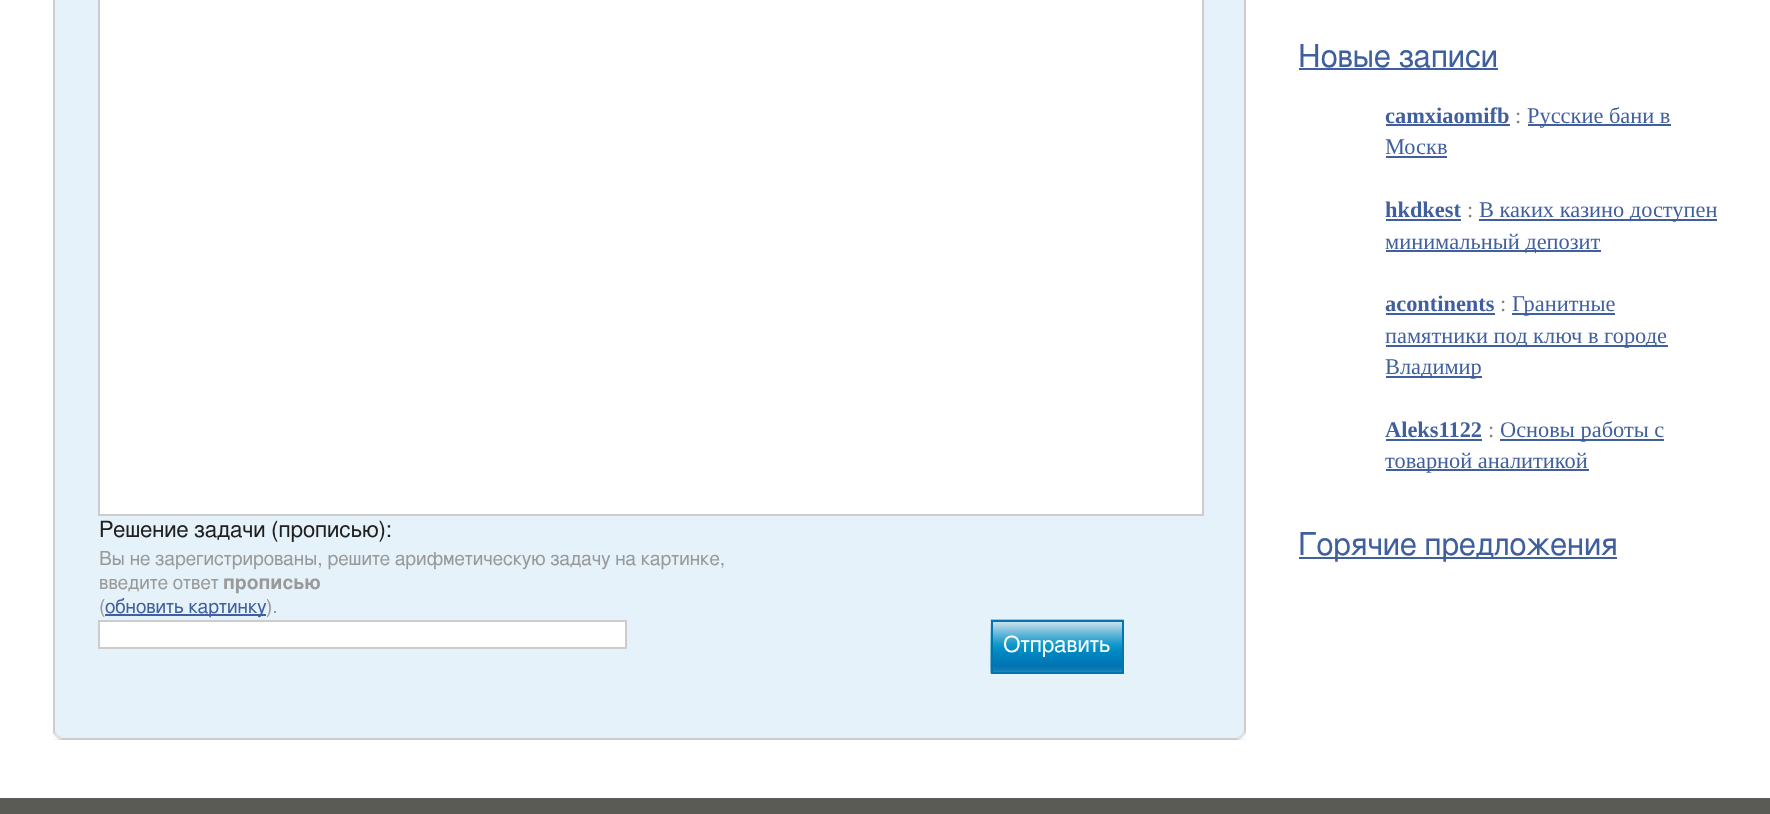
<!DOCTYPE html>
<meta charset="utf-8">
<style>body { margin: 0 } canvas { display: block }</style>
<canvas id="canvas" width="1770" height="814"></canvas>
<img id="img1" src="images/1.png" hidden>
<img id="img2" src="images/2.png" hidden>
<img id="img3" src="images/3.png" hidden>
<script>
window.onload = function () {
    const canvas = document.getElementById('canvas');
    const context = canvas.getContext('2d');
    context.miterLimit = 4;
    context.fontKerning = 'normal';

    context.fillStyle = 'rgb(255, 255, 255)';
    context.fillRect(0, 0, 1770, 814);
    context.fillStyle = 'rgb(63, 95, 158)';
    context.fillRect(1299, 68, 199, 2);
    context.fillRect(1386, 124, 124, 2);
    context.fillRect(1528, 124, 143, 2);
    context.fillRect(1386, 156, 61, 2);
    context.fillRect(1386, 219, 75, 2);
    context.fillRect(1479, 219, 238, 2);
    context.fillRect(1386, 250, 215, 2);
    context.fillRect(1386, 313, 109, 2);
    context.fillRect(1512, 313, 103, 2);
    context.fillRect(1386, 345, 282, 2);
    context.fillRect(1386, 376, 96, 2);
    context.fillRect(1386, 439, 96, 2);
    context.fillRect(1500, 439, 164, 2);
    context.fillRect(1386, 469, 203, 2);
    context.fillRect(1299, 557, 318, 2);
    context.fillStyle = 'rgb(229, 242, 250)';
    context.beginPath();
    context.rect(54, -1, 1191, 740);
    context.fill();
    context.strokeStyle = 'rgb(204, 204, 204)';
    context.lineWidth = 2;
    context.stroke();
    context.fillStyle = 'rgb(255, 255, 255)';
    context.beginPath();
    context.rect(99, -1, 1104, 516);
    context.fill();
    context.stroke();
    context.fillStyle = 'rgb(63, 95, 158)';
    context.fillRect(105, 614, 161, 2);
    context.fillStyle = 'rgb(255, 255, 255)';
    context.beginPath();
    context.rect(99, 621, 527, 27);
    context.fill();
    context.stroke();
    context.drawImage(document.getElementById('img1'), 990, 619, 134, 55);
    context.strokeStyle = 'rgb(1, 117, 176)';
    context.strokeRect(992, 621, 131, 52);
    context.drawImage(document.getElementById('img2'), 52, 731, 10, 9);
    context.drawImage(document.getElementById('img3'), 1237, 731, 9, 9);
    context.fillStyle = 'rgb(91, 91, 86)';
    context.fillRect(0, 798, 1770, 16);
    context.font = '31.4px FreeSans';
    context.fillStyle = 'rgb(63, 95, 158)';
    context.fillText('Новые записи', 1298, 67);
    context.font = 'bold 22.4px Liberation Serif';
    context.fillText('camxiaomifb', 1385, 123);
    context.font = '22.4px Liberation Serif';
    context.fillStyle = 'rgb(128, 128, 128)';
    context.fillText(':', 1515, 123);
    context.fillStyle = 'rgb(63, 95, 158)';
    context.fillText('Русские бани в', 1527, 123);
    context.fillText('Москв', 1385, 154);
    context.font = 'bold 22.4px Liberation Serif';
    context.fillText('hkdkest', 1385, 217);
    context.font = '22.4px Liberation Serif';
    context.fillStyle = 'rgb(128, 128, 128)';
    context.fillText(':', 1467, 217);
    context.fillStyle = 'rgb(63, 95, 158)';
    context.fillText('В каких казино доступен', 1479, 217);
    context.fillText('минимальный депозит', 1385, 249);
    context.font = 'bold 22.4px Liberation Serif';
    context.fillText('acontinents', 1385, 311);
    context.font = '22.4px Liberation Serif';
    context.fillStyle = 'rgb(128, 128, 128)';
    context.fillText(':', 1500, 311);
    context.fillStyle = 'rgb(63, 95, 158)';
    context.fillText('Гранитные', 1512, 311);
    context.fillText('памятники под ключ в городе', 1385, 343);
    context.fillText('Владимир', 1385, 374);
    context.font = 'bold 22.4px Liberation Serif';
    context.fillText('Aleks1122', 1385, 437);
    context.font = '22.4px Liberation Serif';
    context.fillStyle = 'rgb(128, 128, 128)';
    context.fillText(':', 1488, 437);
    context.fillStyle = 'rgb(63, 95, 158)';
    context.fillText('Основы работы с', 1500, 437);
    context.fillText('товарной аналитикой', 1385, 468);
    context.font = '31.4px FreeSans';
    context.fillText('Горячие предложения', 1298, 555);
    context.font = '22.4px FreeSans';
    context.fillStyle = 'rgb(32, 32, 32)';
    context.fillText('Решение задачи (прописью):', 99, 537);
    context.font = '19.25px FreeSans';
    context.fillStyle = 'rgb(153, 153, 153)';
    context.fillText('Вы не зарегистрированы, решите арифметическую задачу на картинке,', 99, 565);
    context.fillText('введите ответ', 99, 589);
    context.font = '600 19.25px FreeSans';
    context.fillText('прописью', 223, 589);
    context.font = '19.25px FreeSans';
    context.fillText('(', 99, 613);
    context.fillStyle = 'rgb(63, 95, 158)';
    context.fillText('обновить картинку', 105, 613);
    context.fillStyle = 'rgb(153, 153, 153)';
    context.fillText(').', 266, 613);
    context.font = '22.4px FreeSans';
    context.fillStyle = 'rgb(255, 255, 255)';
    context.fillText('Отправить', 1003, 652);
};
</script>
